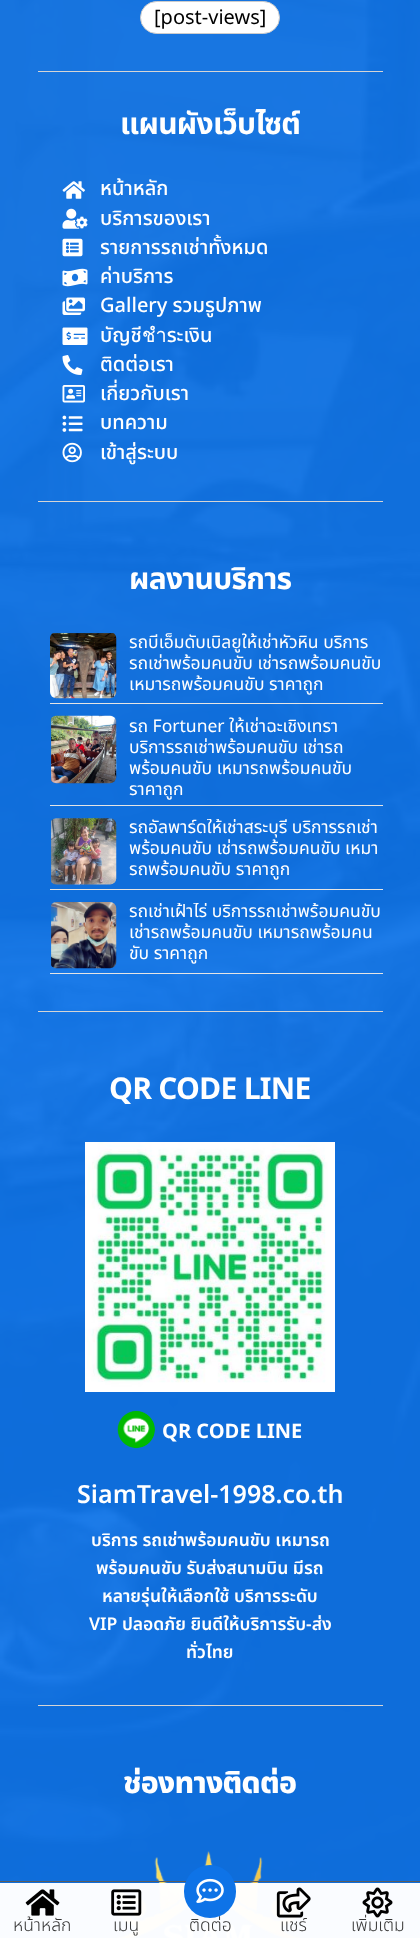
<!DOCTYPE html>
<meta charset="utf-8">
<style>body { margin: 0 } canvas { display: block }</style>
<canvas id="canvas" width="420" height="1938"></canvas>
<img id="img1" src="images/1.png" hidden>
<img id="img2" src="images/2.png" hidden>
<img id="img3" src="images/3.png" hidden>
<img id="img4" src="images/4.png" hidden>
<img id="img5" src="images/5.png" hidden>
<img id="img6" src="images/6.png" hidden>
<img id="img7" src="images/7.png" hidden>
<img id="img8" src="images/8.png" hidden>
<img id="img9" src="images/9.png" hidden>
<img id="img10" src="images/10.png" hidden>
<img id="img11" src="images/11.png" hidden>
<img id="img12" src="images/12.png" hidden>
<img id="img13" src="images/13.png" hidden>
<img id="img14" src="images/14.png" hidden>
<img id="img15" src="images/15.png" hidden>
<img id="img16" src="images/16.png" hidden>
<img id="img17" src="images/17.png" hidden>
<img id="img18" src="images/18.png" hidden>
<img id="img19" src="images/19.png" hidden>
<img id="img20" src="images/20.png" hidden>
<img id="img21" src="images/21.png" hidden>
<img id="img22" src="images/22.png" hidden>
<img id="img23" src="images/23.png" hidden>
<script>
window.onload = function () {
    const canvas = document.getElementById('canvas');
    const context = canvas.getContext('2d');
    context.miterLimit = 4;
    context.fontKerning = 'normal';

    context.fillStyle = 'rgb(255, 255, 255)';
    context.fillRect(0, 0, 420, 1938);
    context.drawImage(document.getElementById('img1'), 0, 0, 420, 1938);
    context.fillStyle = 'rgb(213, 213, 213)';
    context.fillRect(38, 71, 345, 1);
    context.fillStyle = 'rgb(255, 255, 255)';
    context.beginPath();
    context.roundRect(140.5, 1.5, 139, 32, 16);
    context.fill();
    context.strokeStyle = 'rgb(204, 204, 204)';
    context.stroke();
    context.fillStyle = 'rgb(213, 213, 213)';
    context.fillRect(38, 501, 345, 1);
    context.drawImage(document.getElementById('img2'), 62, 181, 23, 18);
    context.drawImage(document.getElementById('img3'), 62, 208, 26, 21);
    context.drawImage(document.getElementById('img4'), 62, 238, 21, 19);
    context.drawImage(document.getElementById('img5'), 62, 268, 26, 19);
    context.drawImage(document.getElementById('img6'), 62, 297, 23, 18);
    context.drawImage(document.getElementById('img7'), 62, 327, 26, 18);
    context.drawImage(document.getElementById('img8'), 62, 355, 21, 20);
    context.drawImage(document.getElementById('img9'), 62, 385, 23, 18);
    context.drawImage(document.getElementById('img10'), 62, 415, 21, 17);
    context.drawImage(document.getElementById('img11'), 62, 442, 20, 21);
    context.fillRect(38, 1011, 345, 1);
    context.fillStyle = 'rgb(229, 229, 229)';
    context.fillRect(50, 703, 333, 1);
    context.drawImage(document.getElementById('img12'), 50, 633, 67, 66);
    context.fillRect(50, 805, 333, 1);
    context.drawImage(document.getElementById('img13'), 51, 715, 66, 69);
    context.fillRect(50, 889, 333, 1);
    context.drawImage(document.getElementById('img14'), 51, 818, 66, 67);
    context.fillRect(50, 973, 333, 1);
    context.drawImage(document.getElementById('img15'), 51, 902, 66, 67);
    context.fillStyle = 'rgb(213, 213, 213)';
    context.fillRect(38, 1705, 345, 1);
    context.drawImage(document.getElementById('img16'), 85, 1142, 250, 250);
    context.drawImage(document.getElementById('img17'), 117, 1410, 38, 39);
    context.drawImage(document.getElementById('img18'), 111, 1851, 195, 87);
    context.fillStyle = 'rgba(255, 255, 255, 0.98)';
    context.fillRect(0, 1883, 420, 55);
    context.fillStyle = 'rgb(92, 92, 92)';
    context.fillRect(0, 1881, 420, 1);
    context.drawImage(document.getElementById('img19'), 25, 1889, 35, 27);
    context.drawImage(document.getElementById('img20'), 111, 1889, 31, 27);
    context.fillStyle = 'rgb(14, 115, 231)';
    context.beginPath();
    context.roundRect(184, 1865, 52, 53, 26);
    context.fill();
    context.drawImage(document.getElementById('img21'), 196, 1878, 28, 25);
    context.drawImage(document.getElementById('img22'), 276, 1887, 35, 31);
    context.font = '20px Noto Sans Thai';
    context.fillStyle = 'rgb(0, 0, 0)';
    context.fillText('[post-views]', 154, 24);
    context.letterSpacing = '-0.75px';
    context.font = 'bold 30px Noto Sans Thai';
    context.fillStyle = 'rgb(255, 255, 255)';
    context.fillText('แผนผังเว็บไซต์', 120, 134);
    context.letterSpacing = '0px';
    context.font = '500 20px Noto Sans Thai';
    context.fillText('หน้าหลัก', 100, 195);
    context.fillText('บริการของเรา', 100, 225);
    context.fillText('รายการรถเช่าทั้งหมด', 100, 254);
    context.fillText('ค่าบริการ', 100, 283);
    context.fillText('Gallery รวมรูปภาพ', 100, 312);
    context.fillText('บัญชีชำระเงิน', 100, 342);
    context.fillText('ติดต่อเรา', 100, 371);
    context.fillText('เกี่ยวกับเรา', 100, 400);
    context.fillText('บทความ', 100, 429);
    context.fillText('เข้าสู่ระบบ', 100, 459);
    context.letterSpacing = '-0.75px';
    context.font = 'bold 30px Noto Sans Thai';
    context.fillText('ผลงานบริการ', 129, 589);
    context.letterSpacing = '0px';
    context.font = '17.5px Noto Sans Thai';
    context.fillText('รถบีเอ็มดับเบิลยูให้เช่าหัวหิน บริการ', 129, 648);
    context.fillText('รถเช่าพร้อมคนขับ เช่ารถพร้อมคนขับ', 129, 669);
    context.fillText('เหมารถพร้อมคนขับ ราคาถูก', 129, 690);
    context.fillText('รถ Fortuner ให้เช่าฉะเชิงเทรา', 129, 732);
    context.fillText('บริการรถเช่าพร้อมคนขับ เช่ารถ', 129, 753);
    context.fillText('พร้อมคนขับ เหมารถพร้อมคนขับ', 129, 774);
    context.fillText('ราคาถูก', 129, 795);
    context.save();
    context.beginPath();
    context.rect(50, 819, 333, 70);
    context.clip();
    context.fillText('รถอัลพาร์ดให้เช่าสระบุรี บริการรถเช่า', 129, 833);
    context.restore();
    context.fillText('พร้อมคนขับ เช่ารถพร้อมคนขับ เหมา', 129, 854);
    context.fillText('รถพร้อมคนขับ ราคาถูก', 129, 875);
    context.save();
    context.beginPath();
    context.rect(50, 903, 333, 70);
    context.clip();
    context.fillText('รถเช่าเฝ้าไร่ บริการรถเช่าพร้อมคนขับ', 129, 917);
    context.restore();
    context.fillText('เช่ารถพร้อมคนขับ เหมารถพร้อมคน', 129, 938);
    context.fillText('ขับ ราคาถูก', 129, 959);
    context.letterSpacing = '-0.75px';
    context.font = 'bold 30px Noto Sans Thai';
    context.fillText('QR CODE LINE', 109, 1099);
    context.letterSpacing = '0px';
    context.font = 'bold 20px Noto Sans Thai';
    context.fillText('QR CODE LINE', 162, 1438);
    context.font = '600 25px Noto Sans Thai';
    context.fillText('SiamTravel-1998.co.th', 77, 1503);
    context.font = '600 17.5px Noto Sans Thai';
    context.fillText('บริการ รถเช่าพร้อมคนขับ เหมารถ', 91, 1546);
    context.fillText('พร้อมคนขับ รับส่งสนามบิน มีรถ', 96, 1574);
    context.fillText('หลายรุ่นให้เลือกใช้ บริการระดับ', 102, 1602);
    context.fillText('VIP ปลอดภัย ยินดีให้บริการรับ-ส่ง', 89, 1630);
    context.fillText('ทั่วไทย', 186, 1658);
    context.letterSpacing = '-0.75px';
    context.font = '800 30px Noto Sans Thai';
    context.fillText('ช่องทางติดต่อ', 123, 1793);
    context.letterSpacing = '0px';
    context.font = '300 17.5px Noto Sans Thai';
    context.fillStyle = 'rgb(52, 52, 52)';
    context.fillText('หน้าหลัก', 13, 1931);
    context.fillText('เมนู', 113, 1931);
    context.fillText('ติดต่อ', 189, 1931);
    context.fillText('แชร์', 280, 1931);
    context.fillText('เพิ่มเติม', 351, 1931);
    context.drawImage(document.getElementById('img23'), 362, 1887, 31, 31);
};
</script>
